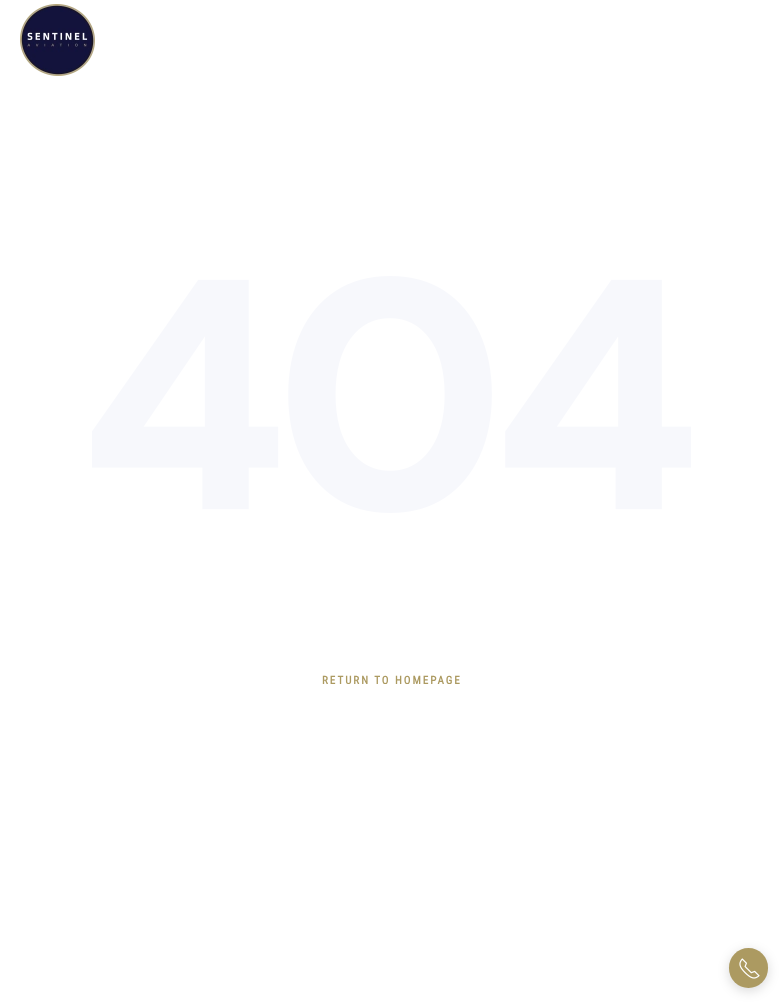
<!DOCTYPE html>
<meta charset="utf-8">
<style>body { margin: 0 } canvas { display: block }</style>
<canvas id="canvas" width="783" height="1003"></canvas>
<img id="img1" src="images/1.png" hidden>
<img id="img2" src="images/2.png" hidden>
<img id="img3" src="images/3.png" hidden>
<script>
window.onload = function () {
    const canvas = document.getElementById('canvas');
    const context = canvas.getContext('2d');
    context.miterLimit = 4;
    context.fontKerning = 'normal';

    context.fillStyle = 'rgb(255, 255, 255)';
    context.fillRect(0, 0, 783, 1003);
    context.drawImage(document.getElementById('img1'), 20, 4, 75, 72);
    context.drawImage(document.getElementById('img2'), 92, 276, 599, 237);
    context.fillStyle = 'rgba(0, 0, 0, 0.15)';
    context.filter = 'blur(6px)';
    context.beginPath();
    context.roundRect(729, 951, 39, 40, 19.5);
    context.fill();
    context.filter = 'none';
    context.fillStyle = 'rgb(172, 154, 97)';
    context.beginPath();
    context.roundRect(729, 948, 39, 40, 19.5);
    context.fill();
    context.drawImage(document.getElementById('img3'), 739, 958, 21, 21);
    context.letterSpacing = '2px';
    context.font = 'bold 11px Roboto Condensed';
    context.fillText('RETURN TO HOMEPAGE', 322, 684);
};
</script>
